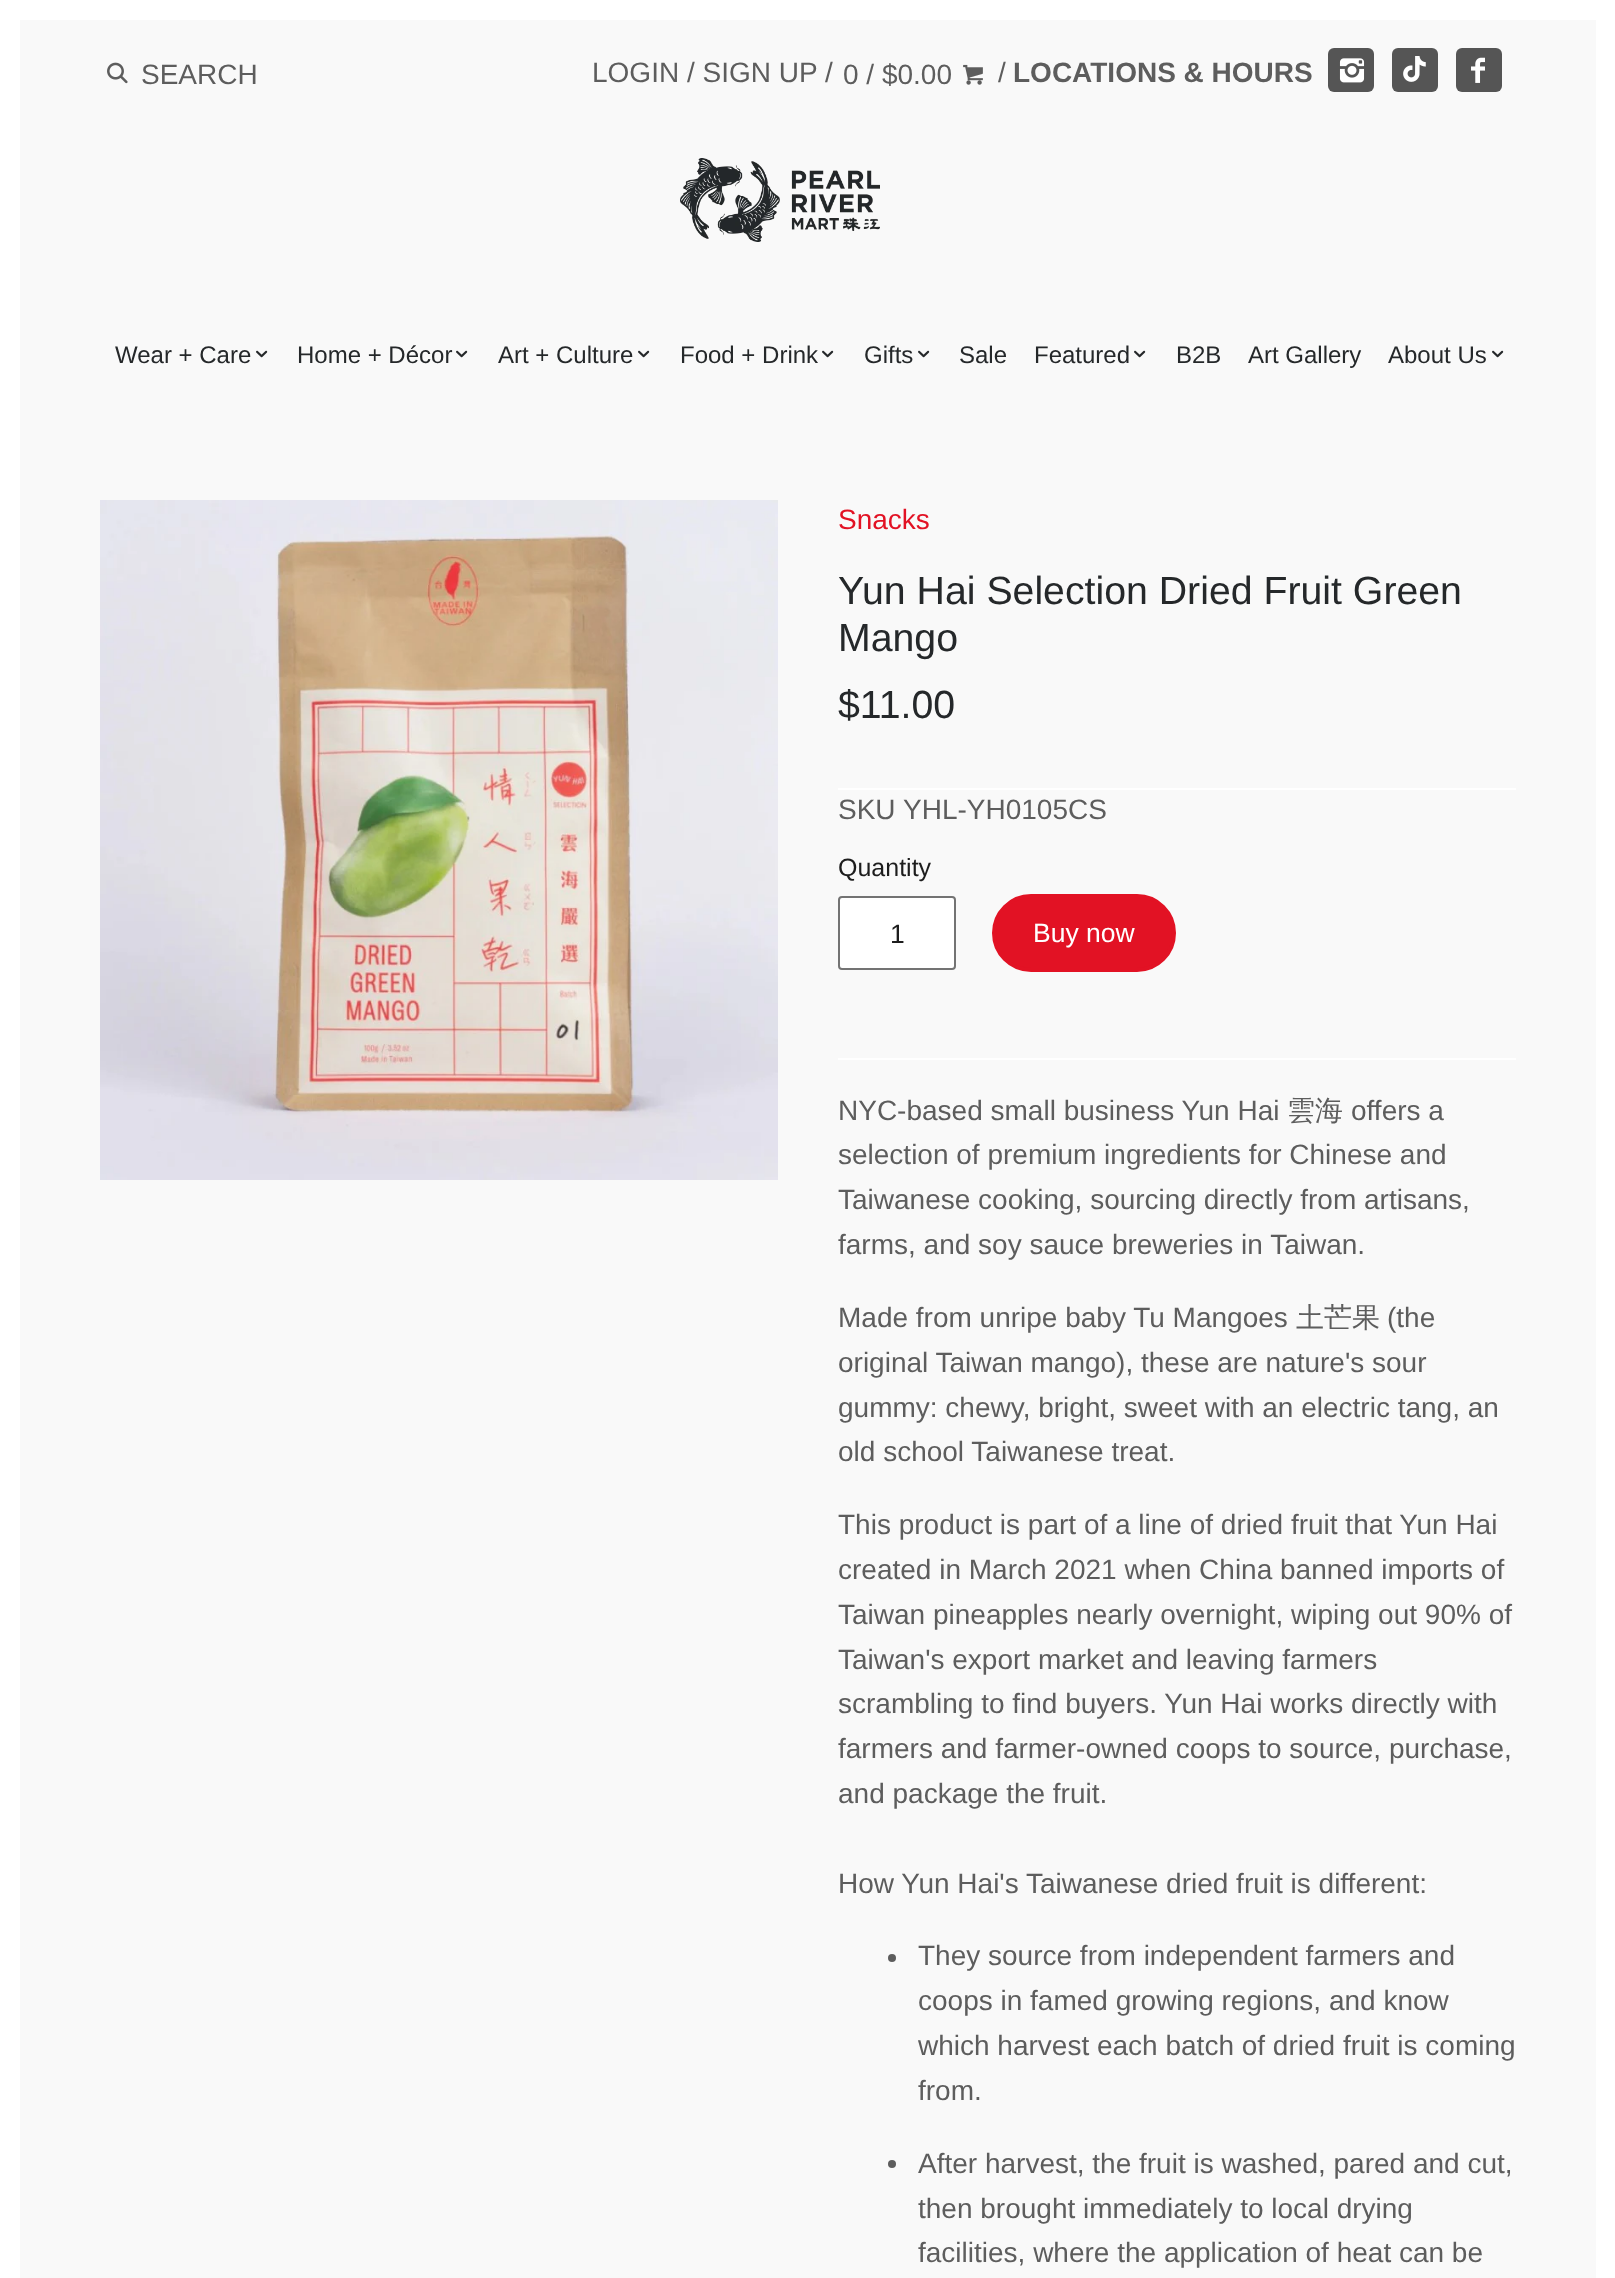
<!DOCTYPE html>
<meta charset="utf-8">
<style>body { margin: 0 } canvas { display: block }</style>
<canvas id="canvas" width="1615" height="2278"></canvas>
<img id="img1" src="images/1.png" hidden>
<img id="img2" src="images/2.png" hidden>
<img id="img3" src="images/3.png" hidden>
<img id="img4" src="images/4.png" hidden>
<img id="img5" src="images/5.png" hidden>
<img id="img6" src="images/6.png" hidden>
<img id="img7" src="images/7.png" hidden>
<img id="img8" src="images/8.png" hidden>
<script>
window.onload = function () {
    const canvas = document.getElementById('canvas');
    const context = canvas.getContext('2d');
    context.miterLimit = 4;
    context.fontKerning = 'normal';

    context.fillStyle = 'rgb(255, 255, 255)';
    context.fillRect(0, 0, 1615, 2278);
    context.fillStyle = 'rgb(249, 249, 249)';
    context.fillRect(20, 20, 1576, 2258);
    context.drawImage(document.getElementById('img1'), 107, 62, 21, 22);
    context.drawImage(document.getElementById('img2'), 963, 64, 20, 21);
    context.fillStyle = 'rgb(85, 85, 85)';
    context.beginPath();
    context.roundRect(1328, 48, 46, 44, 6);
    context.fill();
    context.drawImage(document.getElementById('img3'), 1339, 58, 26, 25);
    context.beginPath();
    context.roundRect(1392, 48, 46, 44, 6);
    context.fill();
    context.drawImage(document.getElementById('img4'), 1403, 56, 23, 26);
    context.beginPath();
    context.roundRect(1456, 48, 46, 44, 6);
    context.fill();
    context.drawImage(document.getElementById('img5'), 1471, 57, 14, 26);
    context.drawImage(document.getElementById('img6'), 680, 158, 200, 84);
    context.drawImage(document.getElementById('img7'), 256, 350, 12, 8);
    context.drawImage(document.getElementById('img7'), 456, 350, 12, 8);
    context.drawImage(document.getElementById('img7'), 638, 350, 12, 8);
    context.drawImage(document.getElementById('img7'), 822, 350, 12, 8);
    context.drawImage(document.getElementById('img7'), 918, 350, 12, 8);
    context.drawImage(document.getElementById('img7'), 1134, 350, 12, 8);
    context.drawImage(document.getElementById('img7'), 1492, 350, 12, 8);
    context.drawImage(document.getElementById('img8'), 100, 500, 678, 680);
    context.fillStyle = 'rgb(255, 255, 255)';
    context.fillRect(838, 788, 678, 2);
    context.fillRect(838, 1058, 678, 2);
    context.beginPath();
    context.roundRect(839, 897, 116, 72, 3);
    context.fill();
    context.strokeStyle = 'rgb(115, 115, 115)';
    context.lineWidth = 2;
    context.stroke();
    context.fillStyle = 'rgb(226, 18, 36)';
    context.beginPath();
    context.roundRect(994, 896, 180, 74, 37);
    context.fill();
    context.strokeStyle = 'rgb(226, 18, 36)';
    context.lineWidth = 4;
    context.stroke();
    context.fillStyle = 'rgb(93, 93, 93)';
    context.beginPath();
    context.arc(892, 1958, 4, 0, 2 * Math.PI);
    context.fill();
    context.beginPath();
    context.arc(892, 2164, 4, 0, 2 * Math.PI);
    context.fill();
    context.font = '28px Liberation Sans';
    context.fillText('SEARCH', 141, 84);
    context.fillText('LOGIN / SIGN UP', 592, 82);
    context.fillText('/', 825, 82);
    context.fillText('0 / $0.00', 843, 84);
    context.fillText('/', 998, 82);
    context.font = 'bold 28px Liberation Sans';
    context.fillText('LOCATIONS & HOURS', 1013, 82);
    context.font = '24px Liberation Sans';
    context.fillStyle = 'rgb(37, 40, 42)';
    context.fillText('Wear + Care', 115, 363);
    context.fillText('Home + Décor', 297, 363);
    context.fillText('Art + Culture', 498, 363);
    context.fillText('Food + Drink', 680, 363);
    context.fillText('Gifts', 864, 363);
    context.fillText('Sale', 959, 363);
    context.fillText('Featured', 1034, 363);
    context.fillText('B2B', 1176, 363);
    context.fillText('Art Gallery', 1248, 363);
    context.fillText('About Us', 1388, 363);
    context.font = '28px Liberation Sans';
    context.fillStyle = 'rgb(226, 18, 36)';
    context.fillText('Snacks', 838, 529);
    context.font = '39.25px Liberation Sans';
    context.fillStyle = 'rgb(37, 40, 42)';
    context.fillText('Yun Hai Selection Dried Fruit Green', 838, 604);
    context.fillText('Mango', 838, 651);
    context.fillText('$11.00', 838, 718);
    context.font = '28px Liberation Sans';
    context.fillStyle = 'rgb(93, 93, 93)';
    context.fillText('SKU', 838, 819);
    context.fillText('YHL-YH0105CS', 903, 819);
    context.font = '25px Liberation Sans';
    context.fillStyle = 'rgb(29, 29, 29)';
    context.fillText('Quantity', 838, 876);
    context.font = '26.5px Liberation Sans';
    context.fillText('1', 890, 943);
    context.fillStyle = 'rgb(255, 255, 255)';
    context.fillText('Buy now', 1033, 942);
    context.font = '28px Liberation Sans';
    context.fillStyle = 'rgb(93, 93, 93)';
    context.fillText('NYC-based small business Yun Hai', 838, 1120);
    context.font = '500 28px WenQuanYi Zen Hei';
    context.fillText('雲海', 1287, 1120);
    context.font = '28px Liberation Sans';
    context.fillText('offers a', 1351, 1120);
    context.fillText('selection of premium ingredients for Chinese and', 838, 1164);
    context.fillText('Taiwanese cooking, sourcing directly from artisans,', 838, 1209);
    context.fillText('farms, and soy sauce breweries in Taiwan.', 838, 1254);
    context.fillText('Made from unripe baby Tu Mangoes', 838, 1327);
    context.font = '500 28px WenQuanYi Zen Hei';
    context.fillText('土芒果', 1296, 1327);
    context.font = '28px Liberation Sans';
    context.fillText('(the', 1387, 1327);
    context.fillText('original Taiwan mango), these are nature\'s sour', 838, 1372);
    context.fillText('gummy: chewy, bright, sweet with an electric tang, an', 838, 1417);
    context.fillText('old school Taiwanese treat.', 838, 1461);
    context.fillText('This product is part of a line of dried fruit that Yun Hai', 838, 1534);
    context.fillText('created in March 2021 when China banned imports of', 838, 1579);
    context.fillText('Taiwan pineapples nearly overnight, wiping out 90% of', 838, 1624);
    context.fillText('Taiwan\'s export market and leaving farmers', 838, 1669);
    context.fillText('scrambling to find buyers. Yun Hai works directly with', 838, 1713);
    context.fillText('farmers and farmer-owned coops to source, purchase,', 838, 1758);
    context.fillText('and package the fruit.', 838, 1803);
    context.fillText('How Yun Hai\'s Taiwanese dried fruit is different:', 838, 1893);
    context.fillText('They source from independent farmers and', 918, 1965);
    context.fillText('coops in famed growing regions, and know', 918, 2010);
    context.fillText('which harvest each batch of dried fruit is coming', 918, 2055);
    context.fillText('from.', 918, 2100);
    context.fillText('After harvest, the fruit is washed, pared and cut,', 918, 2173);
    context.fillText('then brought immediately to local drying', 918, 2218);
    context.fillText('facilities, where the application of heat can be', 918, 2262);
};
</script>
